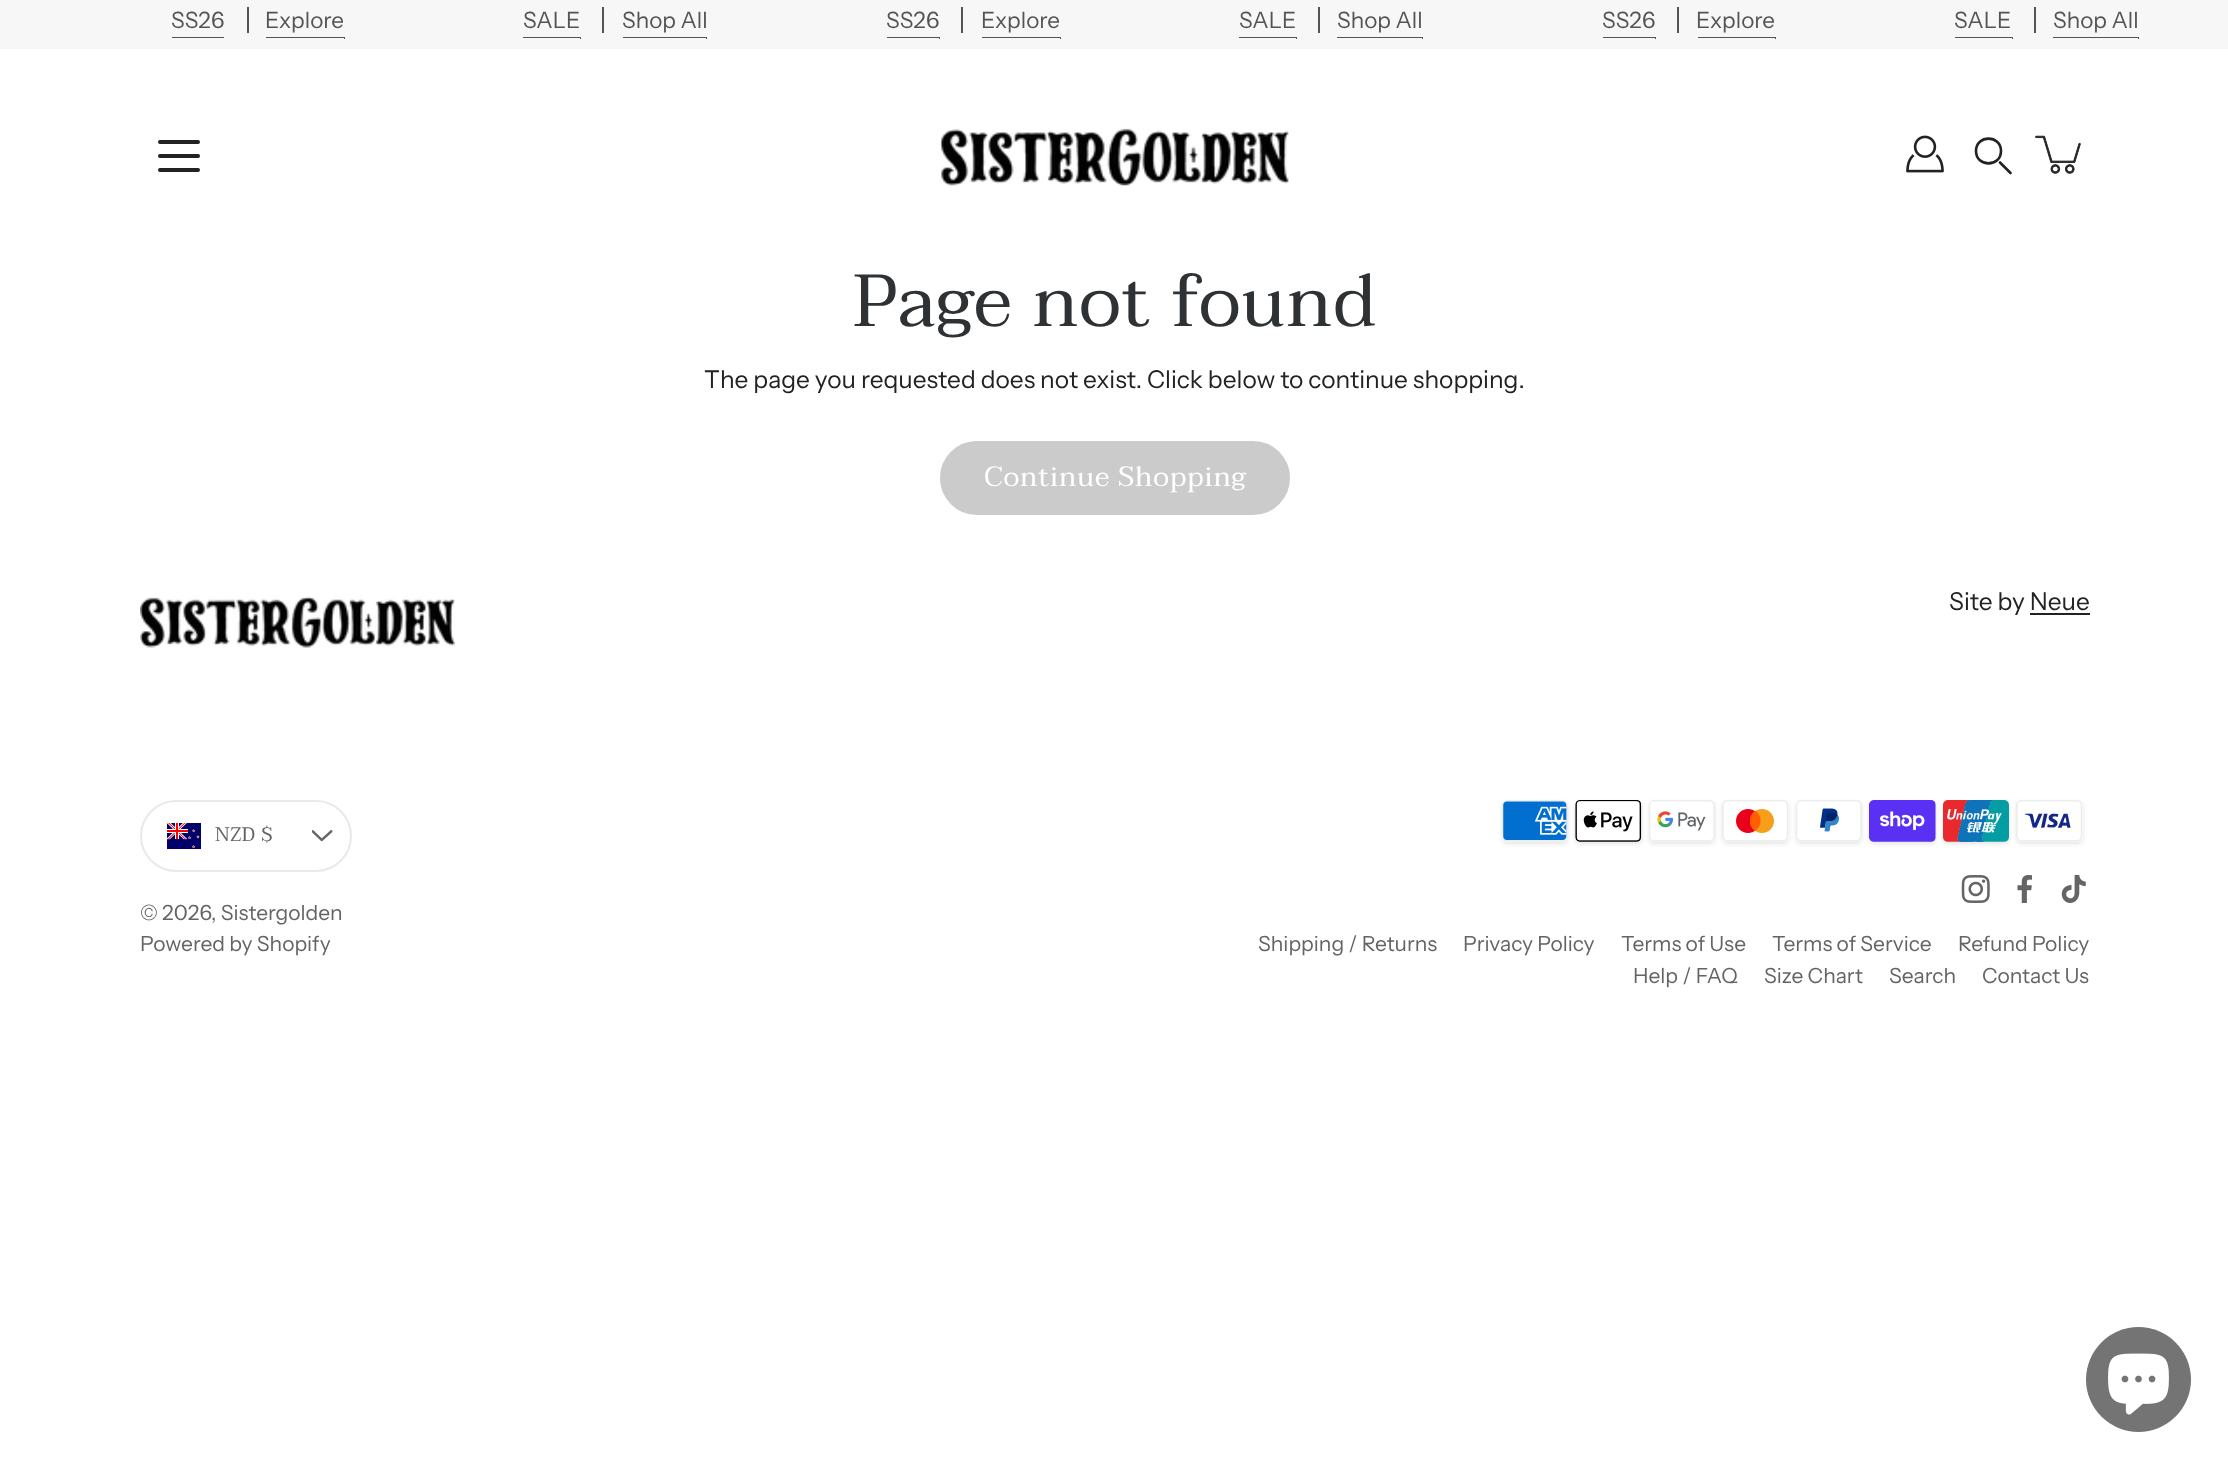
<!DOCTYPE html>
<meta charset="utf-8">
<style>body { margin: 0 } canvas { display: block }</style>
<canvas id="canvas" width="2228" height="1468"></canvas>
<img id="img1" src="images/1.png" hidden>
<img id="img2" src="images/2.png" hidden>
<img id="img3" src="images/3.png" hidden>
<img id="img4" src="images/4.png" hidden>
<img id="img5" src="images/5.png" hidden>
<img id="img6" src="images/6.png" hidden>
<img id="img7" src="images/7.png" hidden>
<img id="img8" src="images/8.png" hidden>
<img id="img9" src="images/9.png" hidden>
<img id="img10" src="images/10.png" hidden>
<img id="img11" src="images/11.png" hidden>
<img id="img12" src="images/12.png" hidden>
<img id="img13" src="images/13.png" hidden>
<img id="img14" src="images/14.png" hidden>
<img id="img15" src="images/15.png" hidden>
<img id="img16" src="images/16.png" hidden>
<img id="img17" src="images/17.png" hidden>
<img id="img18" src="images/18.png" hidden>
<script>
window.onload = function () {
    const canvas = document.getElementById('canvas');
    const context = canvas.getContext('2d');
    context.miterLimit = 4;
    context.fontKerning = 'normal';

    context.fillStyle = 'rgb(255, 255, 255)';
    context.fillRect(0, 0, 2228, 1468);
    context.fillStyle = 'rgb(247, 247, 247)';
    context.fillRect(0, 0, 2228, 49);
    context.fillStyle = 'rgb(84, 84, 84)';
    context.beginPath();
    context.moveTo(172, 37);
    context.lineTo(172, 38);
    context.lineTo(224, 38);
    context.lineTo(224, 39);
    context.lineTo(224, 37);
    context.closePath();
    context.fill();
    context.fillRect(247, 7, 2, 26);
    context.beginPath();
    context.moveTo(266, 37);
    context.lineTo(266, 38);
    context.lineTo(344, 38);
    context.lineTo(344, 39);
    context.lineTo(345, 39);
    context.lineTo(345, 37);
    context.closePath();
    context.fill();
    context.beginPath();
    context.moveTo(523, 37);
    context.lineTo(523, 38);
    context.lineTo(580, 38);
    context.lineTo(580, 39);
    context.lineTo(581, 39);
    context.lineTo(581, 37);
    context.closePath();
    context.fill();
    context.fillRect(602, 7, 2, 26);
    context.beginPath();
    context.moveTo(623, 37);
    context.lineTo(623, 38);
    context.lineTo(706, 38);
    context.lineTo(706, 39);
    context.lineTo(707, 39);
    context.lineTo(707, 37);
    context.closePath();
    context.fill();
    context.beginPath();
    context.moveTo(887, 37);
    context.lineTo(887, 38);
    context.lineTo(939, 38);
    context.lineTo(939, 39);
    context.lineTo(940, 39);
    context.lineTo(940, 37);
    context.closePath();
    context.fill();
    context.fillRect(961, 7, 2, 26);
    context.beginPath();
    context.moveTo(982, 37);
    context.lineTo(982, 38);
    context.lineTo(1060, 38);
    context.lineTo(1060, 39);
    context.lineTo(1061, 39);
    context.lineTo(1061, 37);
    context.closePath();
    context.fill();
    context.beginPath();
    context.moveTo(1239, 37);
    context.lineTo(1239, 38);
    context.lineTo(1296, 38);
    context.lineTo(1296, 39);
    context.lineTo(1297, 39);
    context.lineTo(1297, 37);
    context.closePath();
    context.fill();
    context.fillRect(1318, 7, 2, 26);
    context.beginPath();
    context.moveTo(1337, 37);
    context.lineTo(1337, 38);
    context.lineTo(1422, 38);
    context.lineTo(1422, 39);
    context.lineTo(1423, 39);
    context.lineTo(1423, 37);
    context.closePath();
    context.fill();
    context.beginPath();
    context.moveTo(1603, 37);
    context.lineTo(1603, 38);
    context.lineTo(1655, 38);
    context.lineTo(1655, 39);
    context.lineTo(1656, 39);
    context.lineTo(1656, 37);
    context.closePath();
    context.fill();
    context.fillRect(1677, 7, 2, 26);
    context.beginPath();
    context.moveTo(1698, 37);
    context.lineTo(1698, 38);
    context.lineTo(1775, 38);
    context.lineTo(1775, 39);
    context.lineTo(1776, 39);
    context.lineTo(1776, 37);
    context.closePath();
    context.fill();
    context.beginPath();
    context.moveTo(1955, 37);
    context.lineTo(1955, 38);
    context.lineTo(2012, 38);
    context.lineTo(2012, 39);
    context.lineTo(2013, 39);
    context.lineTo(2013, 37);
    context.closePath();
    context.fill();
    context.fillRect(2034, 7, 2, 26);
    context.beginPath();
    context.moveTo(2053, 37);
    context.lineTo(2053, 38);
    context.lineTo(2138, 38);
    context.lineTo(2138, 39);
    context.lineTo(2139, 39);
    context.lineTo(2139, 37);
    context.closePath();
    context.fill();
    context.drawImage(document.getElementById('img1'), 940, 128, 349, 58);
    context.fillStyle = 'rgb(34, 34, 34)';
    context.beginPath();
    context.roundRect(158, 154, 42, 4, 2);
    context.fill();
    context.beginPath();
    context.roundRect(158, 140, 42, 4, 2);
    context.fill();
    context.beginPath();
    context.roundRect(158, 168, 42, 4, 2);
    context.fill();
    context.drawImage(document.getElementById('img2'), 1906, 135, 38, 38);
    context.beginPath();
    context.moveTo(2001, 151);
    context.bezierCurveTo(2001, 167.5, 1976, 167.5, 1976, 151);
    context.bezierCurveTo(1976, 134.5, 2001, 134.5, 2001, 151);
    context.closePath();
    context.strokeStyle = 'rgb(34, 34, 34)';
    context.lineWidth = 2.6;
    context.stroke();
    context.beginPath();
    context.moveTo(2000, 162.5);
    context.lineTo(2010.5, 173);
    context.lineCap = 'round';
    context.stroke();
    context.drawImage(document.getElementById('img3'), 2035, 135, 46, 39);
    context.fillStyle = 'rgb(203, 203, 203)';
    context.beginPath();
    context.roundRect(941, 442, 348, 72, 36);
    context.fill();
    context.strokeStyle = 'rgb(203, 203, 203)';
    context.lineWidth = 2;
    context.stroke();
    context.drawImage(document.getElementById('img4'), 140, 596, 315, 52);
    context.fillStyle = 'rgb(34, 34, 34)';
    context.fillRect(2030, 613, 60, 2);
    context.beginPath();
    context.roundRect(141, 801, 210, 70, 35);
    context.strokeStyle = 'rgb(233, 233, 233)';
    context.stroke();
    context.drawImage(document.getElementById('img5'), 167, 823, 34, 26);
    context.drawImage(document.getElementById('img6'), 312, 830, 21, 12);
    context.save();
    context.beginPath();
    context.moveTo(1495, 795);
    context.lineTo(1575, 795);
    context.lineTo(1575, 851);
    context.lineTo(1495, 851);
    context.closePath();
    context.moveTo(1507, 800);
    context.lineTo(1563, 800);
    context.bezierCurveTo(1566, 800, 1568, 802, 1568, 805);
    context.lineTo(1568, 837);
    context.bezierCurveTo(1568, 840, 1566, 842, 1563, 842);
    context.lineTo(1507, 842);
    context.bezierCurveTo(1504, 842, 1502, 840, 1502, 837);
    context.lineTo(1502, 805);
    context.bezierCurveTo(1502, 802, 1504, 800, 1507, 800);
    context.closePath();
    context.clip('evenodd');
    context.fillStyle = 'rgba(0, 0, 0, 0.1)';
    context.filter = 'blur(2px)';
    context.beginPath();
    context.roundRect(1502, 802, 66, 42, 5);
    context.fill();
    context.filter = 'none';
    context.restore();
    context.drawImage(document.getElementById('img7'), 1502, 800, 66, 42);
    context.fillStyle = 'rgba(0, 0, 0, 0.1)';
    context.filter = 'blur(2px)';
    context.beginPath();
    context.roundRect(1575, 802, 67, 42, 5);
    context.fill();
    context.filter = 'none';
    context.drawImage(document.getElementById('img8'), 1575, 800, 67, 42);
    context.save();
    context.beginPath();
    context.moveTo(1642, 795);
    context.lineTo(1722, 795);
    context.lineTo(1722, 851);
    context.lineTo(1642, 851);
    context.closePath();
    context.moveTo(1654, 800);
    context.lineTo(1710, 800);
    context.bezierCurveTo(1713, 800, 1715, 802, 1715, 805);
    context.lineTo(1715, 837);
    context.bezierCurveTo(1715, 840, 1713, 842, 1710, 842);
    context.lineTo(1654, 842);
    context.bezierCurveTo(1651, 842, 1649, 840, 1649, 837);
    context.lineTo(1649, 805);
    context.bezierCurveTo(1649, 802, 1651, 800, 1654, 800);
    context.closePath();
    context.clip('evenodd');
    context.filter = 'blur(2px)';
    context.beginPath();
    context.roundRect(1649, 802, 66, 42, 5);
    context.fill();
    context.filter = 'none';
    context.restore();
    context.drawImage(document.getElementById('img9'), 1649, 800, 66, 42);
    context.save();
    context.beginPath();
    context.moveTo(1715, 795);
    context.lineTo(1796, 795);
    context.lineTo(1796, 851);
    context.lineTo(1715, 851);
    context.closePath();
    context.moveTo(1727, 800);
    context.lineTo(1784, 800);
    context.bezierCurveTo(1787, 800, 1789, 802, 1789, 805);
    context.lineTo(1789, 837);
    context.bezierCurveTo(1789, 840, 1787, 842, 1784, 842);
    context.lineTo(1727, 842);
    context.bezierCurveTo(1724, 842, 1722, 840, 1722, 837);
    context.lineTo(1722, 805);
    context.bezierCurveTo(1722, 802, 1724, 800, 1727, 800);
    context.closePath();
    context.clip('evenodd');
    context.filter = 'blur(2px)';
    context.beginPath();
    context.roundRect(1722, 802, 67, 42, 5);
    context.fill();
    context.filter = 'none';
    context.restore();
    context.drawImage(document.getElementById('img10'), 1722, 800, 67, 42);
    context.save();
    context.beginPath();
    context.moveTo(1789, 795);
    context.lineTo(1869, 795);
    context.lineTo(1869, 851);
    context.lineTo(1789, 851);
    context.closePath();
    context.moveTo(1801, 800);
    context.lineTo(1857, 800);
    context.bezierCurveTo(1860, 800, 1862, 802, 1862, 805);
    context.lineTo(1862, 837);
    context.bezierCurveTo(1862, 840, 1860, 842, 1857, 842);
    context.lineTo(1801, 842);
    context.bezierCurveTo(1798, 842, 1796, 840, 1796, 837);
    context.lineTo(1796, 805);
    context.bezierCurveTo(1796, 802, 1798, 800, 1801, 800);
    context.closePath();
    context.clip('evenodd');
    context.filter = 'blur(2px)';
    context.beginPath();
    context.roundRect(1796, 802, 66, 42, 5);
    context.fill();
    context.filter = 'none';
    context.restore();
    context.drawImage(document.getElementById('img11'), 1796, 800, 66, 42);
    context.filter = 'blur(2px)';
    context.beginPath();
    context.roundRect(1869, 802, 67, 42, 5);
    context.fill();
    context.filter = 'none';
    context.drawImage(document.getElementById('img12'), 1869, 800, 67, 42);
    context.filter = 'blur(2px)';
    context.beginPath();
    context.roundRect(1943, 802, 66, 42, 5);
    context.fill();
    context.filter = 'none';
    context.drawImage(document.getElementById('img13'), 1943, 800, 66, 42);
    context.save();
    context.beginPath();
    context.moveTo(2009, 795);
    context.lineTo(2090, 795);
    context.lineTo(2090, 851);
    context.lineTo(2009, 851);
    context.closePath();
    context.moveTo(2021, 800);
    context.lineTo(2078, 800);
    context.bezierCurveTo(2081, 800, 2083, 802, 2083, 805);
    context.lineTo(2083, 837);
    context.bezierCurveTo(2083, 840, 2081, 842, 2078, 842);
    context.lineTo(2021, 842);
    context.bezierCurveTo(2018, 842, 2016, 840, 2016, 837);
    context.lineTo(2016, 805);
    context.bezierCurveTo(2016, 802, 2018, 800, 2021, 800);
    context.closePath();
    context.clip('evenodd');
    context.filter = 'blur(2px)';
    context.beginPath();
    context.roundRect(2016, 802, 67, 42, 5);
    context.fill();
    context.filter = 'none';
    context.restore();
    context.drawImage(document.getElementById('img14'), 2016, 800, 67, 42);
    context.drawImage(document.getElementById('img15'), 1961, 875, 29, 28);
    context.drawImage(document.getElementById('img16'), 2017, 875, 15, 28);
    context.drawImage(document.getElementById('img17'), 2061, 875, 25, 28);
    context.fillStyle = 'rgb(116, 116, 116)';
    context.beginPath();
    context.arc(2138.5, 1379.5, 52.5, 0, 2 * Math.PI);
    context.fill();
    context.drawImage(document.getElementById('img18'), 2108, 1353, 61, 62);
    context.font = '22.5px Instrument Sans';
    context.fillStyle = 'rgb(84, 84, 84)';
    context.fillText('SS26', 171, 28);
    context.fillText('Explore', 265, 28);
    context.fillText('SALE', 523, 28);
    context.fillText('Shop All', 622, 28);
    context.fillText('SS26', 886, 28);
    context.fillText('Explore', 981, 28);
    context.fillText('SALE', 1239, 28);
    context.fillText('Shop All', 1337, 28);
    context.fillText('SS26', 1602, 28);
    context.fillText('Explore', 1696, 28);
    context.fillText('SALE', 1954, 28);
    context.fillText('Shop All', 2053, 28);
    context.letterSpacing = '0.9px';
    context.font = '73.5px Taviraj';
    context.fillStyle = 'rgb(46, 50, 52)';
    context.fillText('Page not found', 853, 326);
    context.letterSpacing = '0px';
    context.font = '24.5px Instrument Sans';
    context.fillStyle = 'rgb(34, 34, 34)';
    context.fillText('The page you requested does not exist. Click below to continue shopping.', 704, 388);
    context.letterSpacing = '0.75px';
    context.font = '28px Taviraj';
    context.fillStyle = 'rgb(255, 255, 255)';
    context.fillText('Continue Shopping', 984, 486);
    context.letterSpacing = '0px';
    context.font = '24.5px Instrument Sans';
    context.fillStyle = 'rgb(34, 34, 34)';
    context.fillText('Site by Neue', 1949, 610);
    context.letterSpacing = '0.5px';
    context.font = '19.5px Taviraj';
    context.fillStyle = 'rgb(100, 100, 100)';
    context.fillText('NZD $', 215, 841);
    context.letterSpacing = '0px';
    context.font = '21px Instrument Sans';
    context.fillText('© 2026, Sistergolden', 140, 920);
    context.fillText('Powered by Shopify', 140, 951);
    context.fillText('Shipping / Returns', 1258, 951);
    context.fillText('Privacy Policy', 1463, 951);
    context.fillText('Terms of Use', 1621, 951);
    context.fillText('Terms of Service', 1772, 951);
    context.fillText('Refund Policy', 1958, 951);
    context.fillText('Help / FAQ', 1633, 983);
    context.fillText('Size Chart', 1764, 983);
    context.fillText('Search', 1889, 983);
    context.fillText('Contact Us', 1982, 983);
};
</script>
